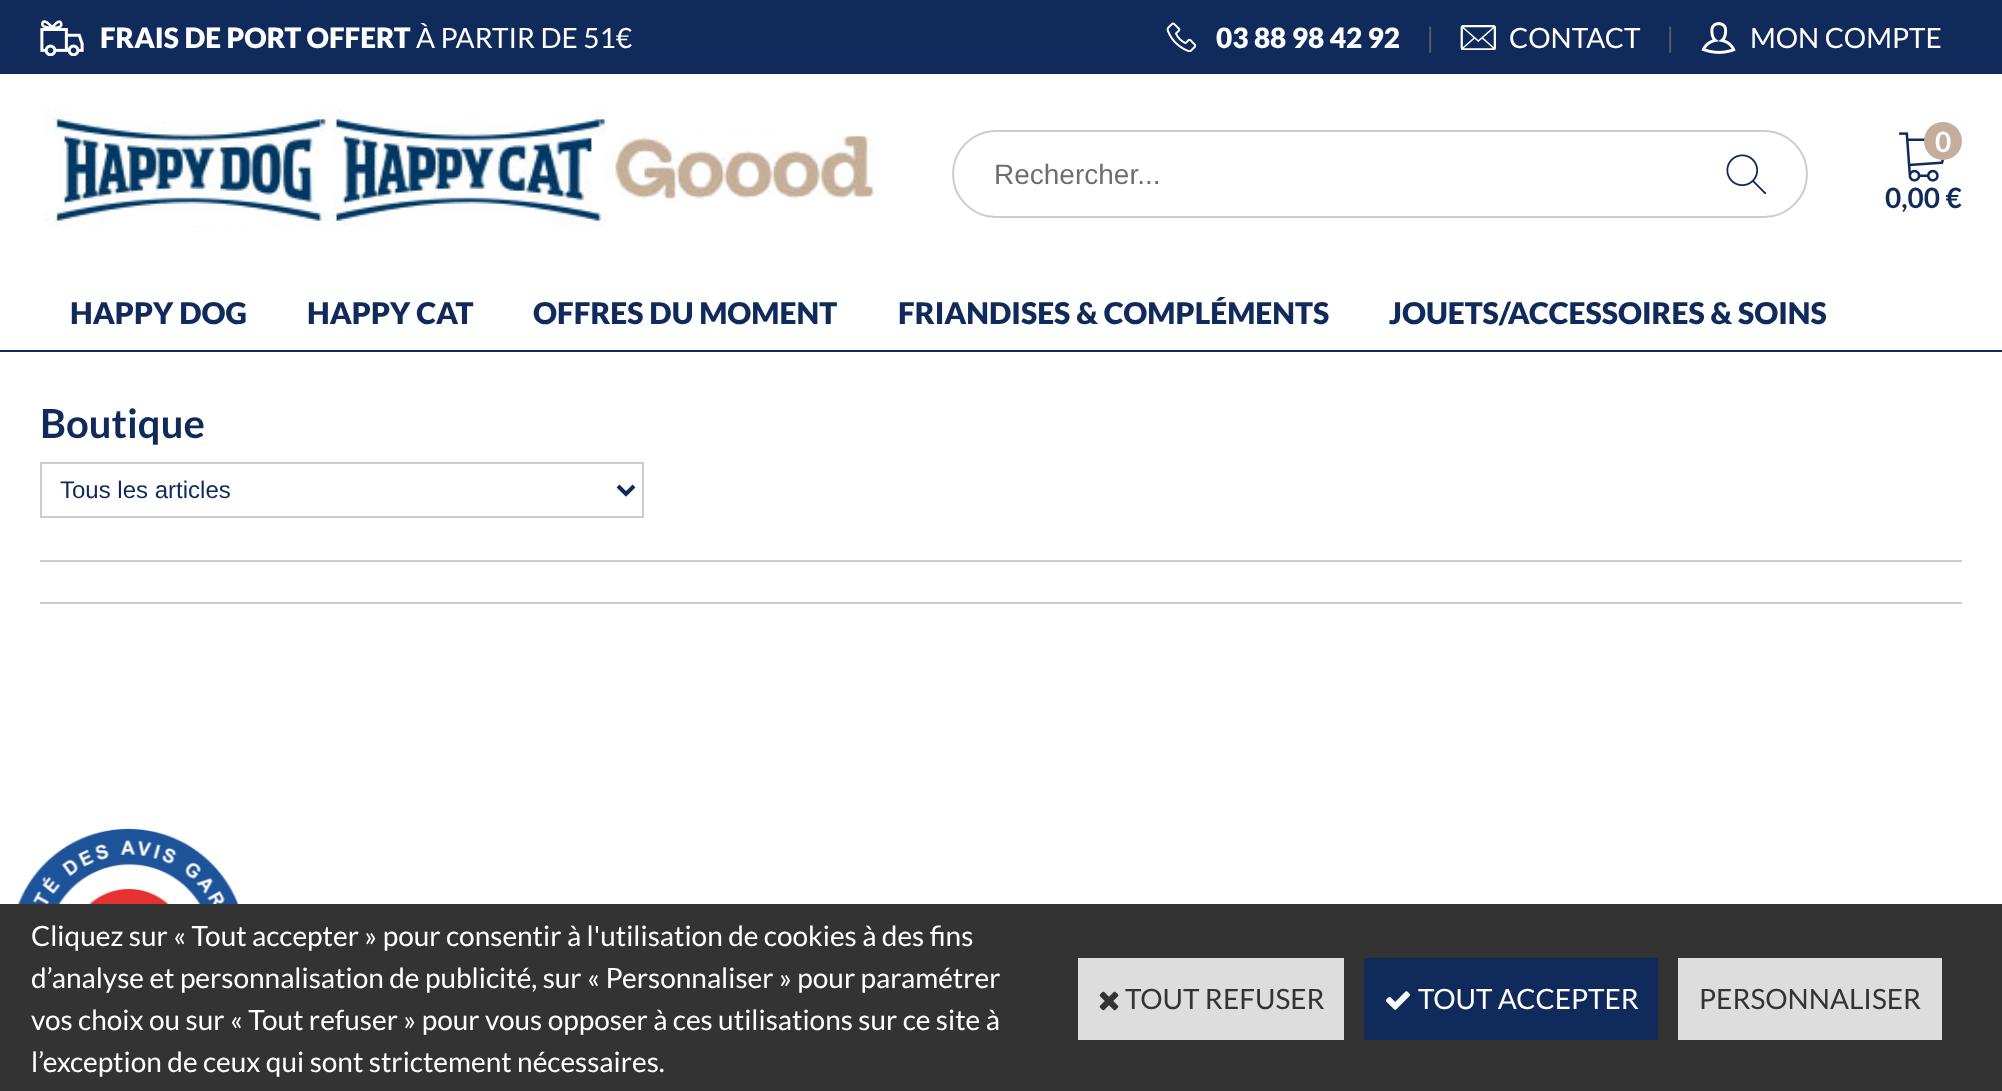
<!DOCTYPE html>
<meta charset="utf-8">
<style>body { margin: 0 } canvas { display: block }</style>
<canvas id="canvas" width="2002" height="1091"></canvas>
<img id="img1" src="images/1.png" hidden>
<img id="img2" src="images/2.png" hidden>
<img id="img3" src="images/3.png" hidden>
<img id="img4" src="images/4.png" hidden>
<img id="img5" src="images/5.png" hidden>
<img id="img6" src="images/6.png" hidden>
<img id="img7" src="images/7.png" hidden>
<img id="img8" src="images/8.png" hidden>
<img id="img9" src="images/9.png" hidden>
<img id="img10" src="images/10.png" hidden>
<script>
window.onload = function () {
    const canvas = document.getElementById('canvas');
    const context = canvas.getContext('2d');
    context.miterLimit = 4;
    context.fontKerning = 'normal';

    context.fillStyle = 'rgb(255, 255, 255)';
    context.fillRect(0, 0, 2002, 1091);
    context.fillStyle = 'rgb(16, 43, 91)';
    context.fillRect(0, 0, 2002, 74);
    context.fillRect(0, 350, 2002, 2);
    context.drawImage(document.getElementById('img1'), 40, 20, 44, 36);
    context.drawImage(document.getElementById('img2'), 1166, 22, 30, 30);
    context.drawImage(document.getElementById('img3'), 1460, 25, 36, 25);
    context.drawImage(document.getElementById('img4'), 1701, 22, 35, 32);
    context.drawImage(document.getElementById('img5'), 43, 110, 836, 118);
    context.beginPath();
    context.roundRect(953, 131, 854, 86, 43);
    context.strokeStyle = 'rgb(204, 204, 204)';
    context.lineWidth = 2;
    context.stroke();
    context.drawImage(document.getElementById('img6'), 1726, 154, 40, 40);
    context.drawImage(document.getElementById('img7'), 1899, 132, 46, 50);
    context.fillStyle = 'rgb(196, 174, 155)';
    context.beginPath();
    context.arc(1943, 141, 19, 0, 2 * Math.PI);
    context.fill();
    context.strokeRect(41, 463, 602, 54);
    context.beginPath();
    context.moveTo(618, 486);
    context.lineTo(626, 494);
    context.lineTo(634, 486);
    context.strokeStyle = 'rgb(16, 43, 91)';
    context.lineWidth = 4;
    context.stroke();
    context.fillStyle = 'rgb(204, 204, 204)';
    context.fillRect(40, 560, 1922, 2);
    context.fillRect(40, 602, 1922, 2);
    context.fillStyle = 'rgb(51, 51, 51)';
    context.fillRect(0, 904, 2002, 187);
    context.fillStyle = 'rgb(221, 221, 221)';
    context.fillRect(1078, 958, 266, 82);
    context.drawImage(document.getElementById('img8'), 1099, 991, 20, 20);
    context.fillStyle = 'rgb(16, 43, 91)';
    context.fillRect(1364, 958, 294, 82);
    context.drawImage(document.getElementById('img9'), 1385, 991, 26, 19);
    context.fillStyle = 'rgb(221, 221, 221)';
    context.fillRect(1678, 958, 264, 82);
    context.drawImage(document.getElementById('img10'), 17, 828, 222, 76);
    context.font = '900 28px Lato';
    context.fillStyle = 'rgb(255, 255, 255)';
    context.fillText('FRAIS DE PORT OFFERT', 100, 48);
    context.font = '28px Lato';
    context.fillText('À PARTIR DE 51€', 416, 48);
    context.font = '900 28px Lato';
    context.fillText('03 88 98 42 92', 1216, 48);
    context.font = '28px Lato';
    context.fillStyle = 'rgb(85, 92, 103)';
    context.fillText('|', 1426, 48);
    context.fillStyle = 'rgb(255, 255, 255)';
    context.fillText('CONTACT', 1509, 48);
    context.fillStyle = 'rgb(85, 92, 103)';
    context.fillText('|', 1666, 48);
    context.fillStyle = 'rgb(255, 255, 255)';
    context.fillText('MON COMPTE', 1750, 48);
    context.font = '28px Liberation Sans';
    context.fillStyle = 'rgb(110, 110, 110)';
    context.fillText('Rechercher...', 994, 184);
    context.font = 'bold 28px Lato';
    context.fillStyle = 'rgb(255, 255, 255)';
    context.fillText('0', 1935, 152);
    context.fillStyle = 'rgb(16, 43, 91)';
    context.fillText('0,00 €', 1885, 208);
    context.font = '900 30px Lato';
    context.fillText('HAPPY DOG', 70, 324);
    context.fillText('HAPPY CAT', 307, 324);
    context.fillText('OFFRES DU MOMENT', 533, 324);
    context.fillText('FRIANDISES & COMPLÉMENTS', 898, 324);
    context.fillText('JOUETS/ACCESSOIRES & SOINS', 1389, 324);
    context.font = 'bold 40px Lato';
    context.fillText('Boutique', 40, 438);
    context.font = '24px Liberation Sans';
    context.fillText('Tous les articles', 60, 498);
    context.font = '28px Lato';
    context.fillStyle = 'rgb(255, 255, 255)';
    context.fillText('Cliquez sur « Tout accepter » pour consentir à l\'utilisation de cookies à des fins', 31, 946);
    context.fillText('d’analyse et personnalisation de publicité, sur « Personnaliser » pour paramétrer', 31, 988);
    context.fillText('vos choix ou sur « Tout refuser » pour vous opposer à ces utilisations sur ce site à', 31, 1030);
    context.fillText('l’exception de ceux qui sont strictement nécessaires.', 31, 1072);
    context.fillStyle = 'rgb(51, 51, 51)';
    context.fillText('TOUT REFUSER', 1125, 1009);
    context.fillStyle = 'rgb(255, 255, 255)';
    context.fillText('TOUT ACCEPTER', 1418, 1009);
    context.fillStyle = 'rgb(51, 51, 51)';
    context.fillText('PERSONNALISER', 1699, 1009);
};
</script>
